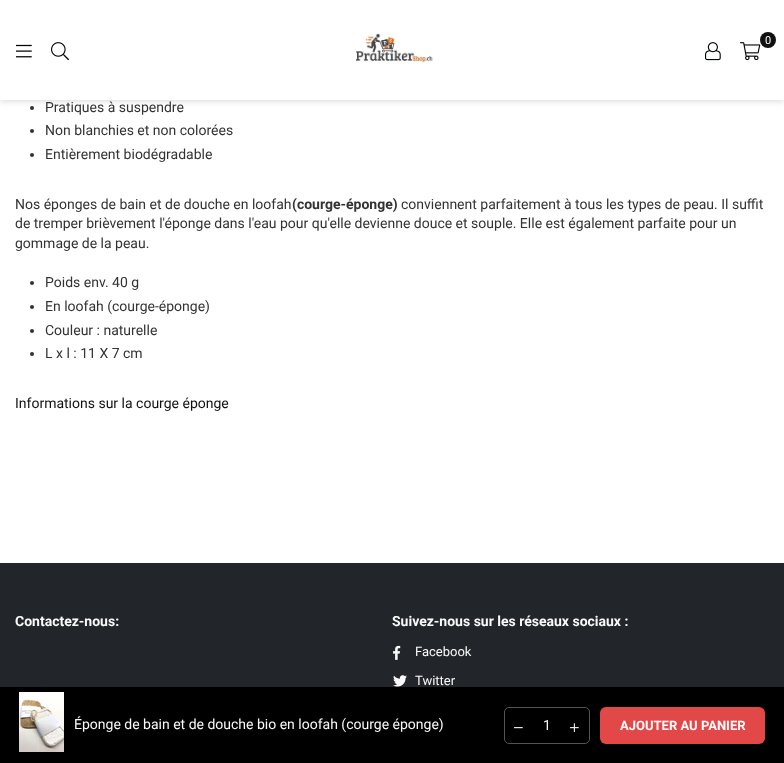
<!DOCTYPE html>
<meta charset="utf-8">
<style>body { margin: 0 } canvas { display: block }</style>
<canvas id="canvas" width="784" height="763"></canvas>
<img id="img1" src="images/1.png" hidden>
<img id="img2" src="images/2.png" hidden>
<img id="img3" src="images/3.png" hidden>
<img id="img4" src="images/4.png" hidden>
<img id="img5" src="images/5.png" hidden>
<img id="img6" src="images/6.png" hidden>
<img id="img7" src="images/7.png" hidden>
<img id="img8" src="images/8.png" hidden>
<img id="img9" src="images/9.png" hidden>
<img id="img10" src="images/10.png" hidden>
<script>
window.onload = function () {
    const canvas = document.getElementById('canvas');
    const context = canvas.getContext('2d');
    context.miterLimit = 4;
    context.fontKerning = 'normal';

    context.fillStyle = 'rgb(255, 255, 255)';
    context.fillRect(0, 0, 784, 763);
    context.fillStyle = 'rgb(51, 51, 51)';
    context.beginPath();
    context.arc(32, 108, 2, 0, 2 * Math.PI);
    context.fill();
    context.fillStyle = 'rgba(0, 0, 0, 0.2)';
    context.filter = 'blur(3.5px)';
    context.beginPath();
    context.rect(0, 0, 784, 100);
    context.fill();
    context.filter = 'none';
    context.fillStyle = 'rgb(255, 255, 255)';
    context.fillRect(0, 0, 784, 100);
    context.drawImage(document.getElementById('img1'), 356, 33, 77, 33);
    context.drawImage(document.getElementById('img2'), 740, 42, 21, 19);
    context.fillStyle = 'rgb(17, 17, 17)';
    context.beginPath();
    context.arc(768, 40, 8, 0, 2 * Math.PI);
    context.fill();
    context.drawImage(document.getElementById('img3'), 705, 42, 16, 19);
    context.drawImage(document.getElementById('img4'), 16, 44, 16, 14);
    context.drawImage(document.getElementById('img5'), 51, 42, 18, 19);
    context.fillStyle = 'rgb(51, 51, 51)';
    context.beginPath();
    context.arc(32, 131, 2, 0, 2 * Math.PI);
    context.fill();
    context.beginPath();
    context.arc(32, 155, 2, 0, 2 * Math.PI);
    context.fill();
    context.beginPath();
    context.arc(32, 283, 2, 0, 2 * Math.PI);
    context.fill();
    context.beginPath();
    context.arc(32, 307, 2, 0, 2 * Math.PI);
    context.fill();
    context.beginPath();
    context.arc(32, 331, 2, 0, 2 * Math.PI);
    context.fill();
    context.beginPath();
    context.arc(32, 354, 2, 0, 2 * Math.PI);
    context.fill();
    context.fillStyle = 'rgb(0, 0, 0)';
    context.fillRect(0, 687, 784, 76);
    context.drawImage(document.getElementById('img6'), 19, 692, 45, 60);
    context.beginPath();
    context.roundRect(504.5, 707.5, 85, 36, 4.5);
    context.strokeStyle = 'rgb(83, 83, 83)';
    context.stroke();
    context.drawImage(document.getElementById('img7'), 514, 727, 9, 2);
    context.drawImage(document.getElementById('img8'), 570, 723, 9, 9);
    context.fillStyle = 'rgb(227, 72, 72)';
    context.beginPath();
    context.roundRect(600, 707, 165, 37, 6);
    context.fill();
    context.fillStyle = 'rgb(34, 37, 42)';
    context.fillRect(0, 563, 784, 124);
    context.drawImage(document.getElementById('img9'), 393, 645, 8, 15);
    context.drawImage(document.getElementById('img10'), 393, 675, 14, 12);
    context.font = '11px Roboto';
    context.fillStyle = 'rgb(255, 255, 255)';
    context.fillText('0', 765, 44);
    context.font = '14px Roboto';
    context.fillStyle = 'rgb(51, 51, 51)';
    context.fillText('Pratiques à suspendre', 45, 112);
    context.fillText('Non blanchies et non colorées', 45, 135);
    context.fillText('Entièrement biodégradable', 45, 159);
    context.fillText('Nos éponges de bain et de douche en loofah', 15, 209);
    context.font = 'bold 14px Roboto';
    context.fillText('(courge-éponge)', 292, 209);
    context.font = '14px Roboto';
    context.fillText('conviennent parfaitement à tous les types de peau. Il suffit', 401, 209);
    context.fillText('de tremper brièvement l\'éponge dans l\'eau pour qu\'elle devienne douce et souple. Elle est également parfaite pour un', 15, 228);
    context.fillText('gommage de la peau.', 15, 248);
    context.fillText('Poids env. 40 g', 45, 287);
    context.fillText('En loofah (courge-éponge)', 45, 311);
    context.fillText('Couleur : naturelle', 45, 335);
    context.fillText('L x l : 11 X 7 cm', 45, 358);
    context.fillStyle = 'rgb(17, 17, 17)';
    context.fillText('Informations sur la courge éponge', 15, 408);
    context.fillStyle = 'rgb(249, 249, 249)';
    context.fillText('Éponge de bain et de douche bio en loofah (courge éponge)', 74, 729);
    context.fillText('1', 543, 730);
    context.font = 'bold 13px Roboto';
    context.fillStyle = 'rgb(255, 255, 255)';
    context.fillText('AJOUTER AU PANIER', 620, 730);
    context.font = 'bold 14px Roboto';
    context.fillStyle = 'rgb(249, 249, 249)';
    context.fillText('Contactez-nous:', 15, 626);
    context.fillText('Suivez-nous sur les réseaux sociaux :', 392, 626);
    context.font = '13px Roboto';
    context.fillText('Facebook', 415, 656);
    context.fillText('Twitter', 415, 685);
};
</script>
